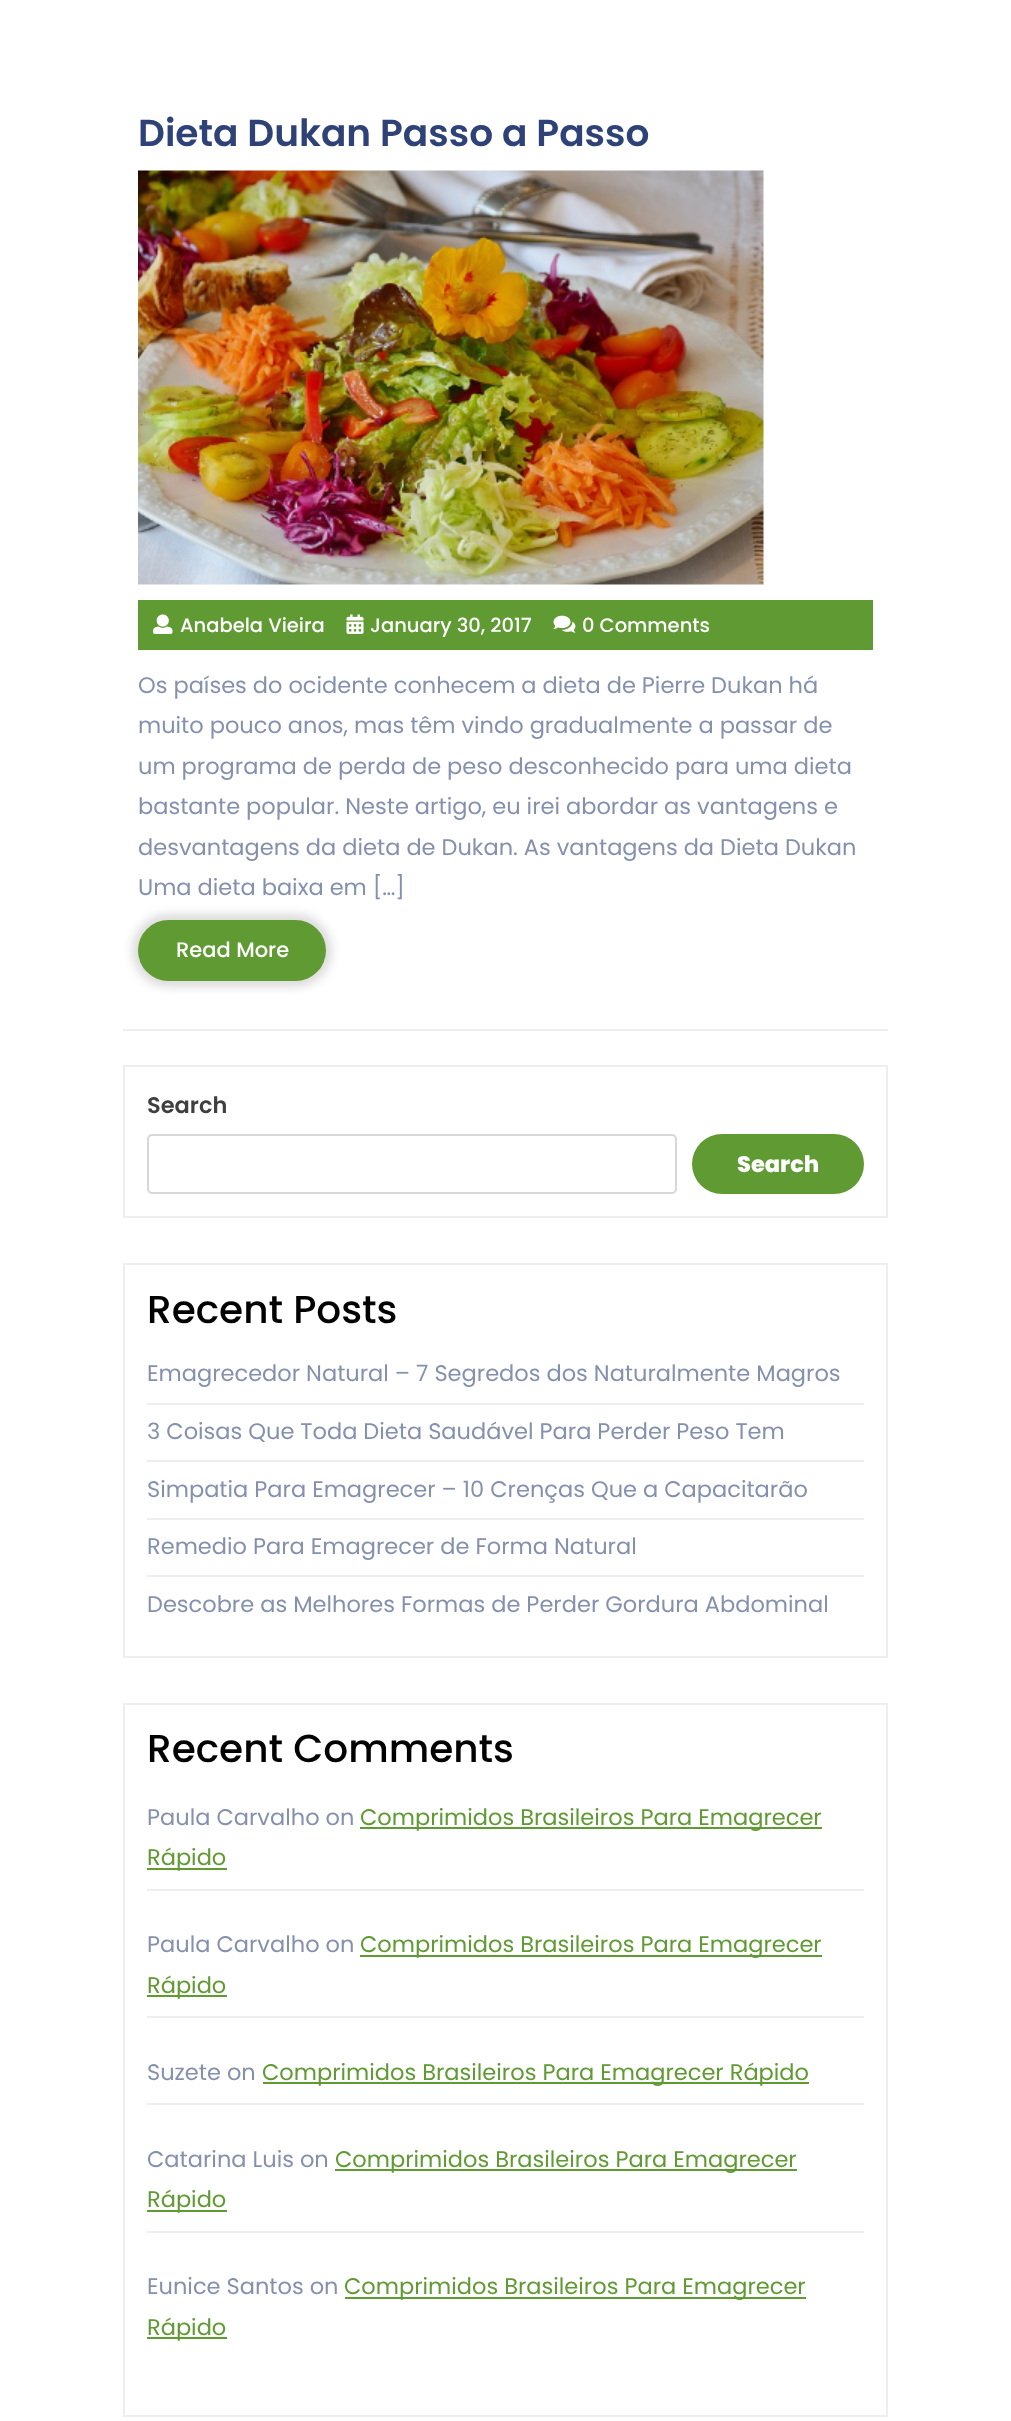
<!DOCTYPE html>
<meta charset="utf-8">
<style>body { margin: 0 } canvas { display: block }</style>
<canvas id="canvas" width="1011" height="2421"></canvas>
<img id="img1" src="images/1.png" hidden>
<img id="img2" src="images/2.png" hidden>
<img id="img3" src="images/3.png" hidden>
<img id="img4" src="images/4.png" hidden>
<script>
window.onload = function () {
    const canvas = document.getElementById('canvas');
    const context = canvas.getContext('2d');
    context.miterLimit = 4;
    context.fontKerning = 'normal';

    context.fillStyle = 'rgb(255, 255, 255)';
    context.fillRect(0, 0, 1011, 2421);
    context.drawImage(document.getElementById('img1'), 138, 170, 626, 415);
    context.fillStyle = 'rgb(96, 154, 51)';
    context.fillRect(138, 600, 735, 50);
    context.drawImage(document.getElementById('img2'), 153, 614, 20, 20);
    context.drawImage(document.getElementById('img3'), 346, 614, 18, 20);
    context.drawImage(document.getElementById('img4'), 553, 615, 23, 18);
    context.fillStyle = 'rgba(20, 20, 20, 0.15)';
    context.filter = 'blur(5px)';
    context.beginPath();
    context.roundRect(132, 914, 200, 73, 36.5);
    context.fill();
    context.filter = 'none';
    context.fillStyle = 'rgb(96, 154, 51)';
    context.beginPath();
    context.roundRect(138, 920, 188, 61, 30.5);
    context.fill();
    context.fillStyle = 'rgb(238, 238, 238)';
    context.fillRect(123, 1029, 765, 2);
    context.strokeStyle = 'rgb(238, 238, 238)';
    context.lineWidth = 2;
    context.strokeRect(124, 1066, 763, 151);
    context.beginPath();
    context.roundRect(148, 1135, 528, 58, 4);
    context.strokeStyle = 'rgb(215, 215, 215)';
    context.stroke();
    context.fillStyle = 'rgb(96, 154, 51)';
    context.beginPath();
    context.roundRect(692, 1134, 172, 60, 30);
    context.fill();
    context.strokeStyle = 'rgb(238, 238, 238)';
    context.strokeRect(124, 1264, 763, 393);
    context.fillStyle = 'rgb(238, 238, 238)';
    context.fillRect(147, 1403, 717, 2);
    context.fillRect(147, 1460, 717, 2);
    context.fillRect(147, 1518, 717, 2);
    context.fillRect(147, 1575, 717, 2);
    context.strokeRect(124, 1704, 763, 712);
    context.fillRect(147, 1889, 717, 2);
    context.fillStyle = 'rgb(96, 154, 51)';
    context.fillRect(360, 1827, 462, 2);
    context.fillRect(147, 1868, 80, 2);
    context.fillStyle = 'rgb(238, 238, 238)';
    context.fillRect(147, 2016, 717, 2);
    context.fillStyle = 'rgb(96, 154, 51)';
    context.fillRect(360, 1955, 462, 2);
    context.fillRect(147, 1995, 80, 2);
    context.fillStyle = 'rgb(238, 238, 238)';
    context.fillRect(147, 2103, 717, 2);
    context.fillStyle = 'rgb(96, 154, 51)';
    context.fillRect(263, 2082, 546, 2);
    context.fillStyle = 'rgb(238, 238, 238)';
    context.fillRect(147, 2231, 717, 2);
    context.fillStyle = 'rgb(96, 154, 51)';
    context.fillRect(335, 2169, 462, 2);
    context.fillRect(147, 2210, 80, 2);
    context.fillRect(345, 2297, 461, 2);
    context.fillRect(147, 2337, 80, 2);
    context.font = '600 37.5px Poppins';
    context.fillStyle = 'rgb(46, 66, 120)';
    context.fillText('Dieta Dukan Passo a Passo', 138, 146);
    context.font = '500 19.5px Poppins';
    context.fillStyle = 'rgb(255, 255, 255)';
    context.fillText('Anabela Vieira', 180, 632);
    context.fillText('January 30, 2017', 370, 632);
    context.fillText('0 Comments', 582, 632);
    context.font = '22.5px Poppins';
    context.fillStyle = 'rgb(132, 144, 173)';
    context.fillText('Os países do ocidente conhecem a dieta de Pierre Dukan há', 138, 693);
    context.fillText('muito pouco anos, mas têm vindo gradualmente a passar de', 138, 733);
    context.fillText('um programa de perda de peso desconhecido para uma dieta', 138, 774);
    context.fillText('bastante popular. Neste artigo, eu irei abordar as vantagens e', 138, 814);
    context.fillText('desvantagens da dieta de Dukan. As vantagens da Dieta Dukan', 138, 855);
    context.fillText('Uma dieta baixa em […]', 138, 895);
    context.font = '500 21px Poppins';
    context.fillStyle = 'rgb(255, 255, 255)';
    context.fillText('Read More', 176, 957);
    context.font = '600 22.5px Poppins';
    context.fillStyle = 'rgb(63, 63, 63)';
    context.fillText('Search', 147, 1113);
    context.font = '800 22.5px Poppins';
    context.fillStyle = 'rgb(255, 255, 255)';
    context.fillText('Search', 737, 1172);
    context.font = '500 39px Poppins';
    context.fillStyle = 'rgb(1, 1, 1)';
    context.fillText('Recent Posts', 147, 1323);
    context.font = '22.5px Poppins';
    context.fillStyle = 'rgb(132, 144, 173)';
    context.fillText('Emagrecedor Natural – 7 Segredos dos Naturalmente Magros', 147, 1381);
    context.fillText('3 Coisas Que Toda Dieta Saudável Para Perder Peso Tem', 147, 1439);
    context.fillText('Simpatia Para Emagrecer – 10 Crenças Que a Capacitarão', 147, 1497);
    context.fillText('Remedio Para Emagrecer de Forma Natural', 147, 1554);
    context.fillText('Descobre as Melhores Formas de Perder Gordura Abdominal', 147, 1612);
    context.font = '500 39px Poppins';
    context.fillStyle = 'rgb(1, 1, 1)';
    context.fillText('Recent Comments', 147, 1762);
    context.font = '22.5px Poppins';
    context.fillStyle = 'rgb(132, 144, 173)';
    context.fillText('Paula Carvalho on', 147, 1825);
    context.fillStyle = 'rgb(96, 154, 51)';
    context.fillText('Comprimidos Brasileiros Para Emagrecer', 360, 1825);
    context.fillText('Rápido', 147, 1865);
    context.fillStyle = 'rgb(132, 144, 173)';
    context.fillText('Paula Carvalho on', 147, 1952);
    context.fillStyle = 'rgb(96, 154, 51)';
    context.fillText('Comprimidos Brasileiros Para Emagrecer', 360, 1952);
    context.fillText('Rápido', 147, 1993);
    context.fillStyle = 'rgb(132, 144, 173)';
    context.fillText('Suzete on', 147, 2080);
    context.fillStyle = 'rgb(96, 154, 51)';
    context.fillText('Comprimidos Brasileiros Para Emagrecer Rápido', 262, 2080);
    context.fillStyle = 'rgb(132, 144, 173)';
    context.fillText('Catarina Luis on', 147, 2167);
    context.fillStyle = 'rgb(96, 154, 51)';
    context.fillText('Comprimidos Brasileiros Para Emagrecer', 335, 2167);
    context.fillText('Rápido', 147, 2207);
    context.fillStyle = 'rgb(132, 144, 173)';
    context.fillText('Eunice Santos on', 147, 2294);
    context.fillStyle = 'rgb(96, 154, 51)';
    context.fillText('Comprimidos Brasileiros Para Emagrecer', 344, 2294);
    context.fillText('Rápido', 147, 2335);
};
</script>
